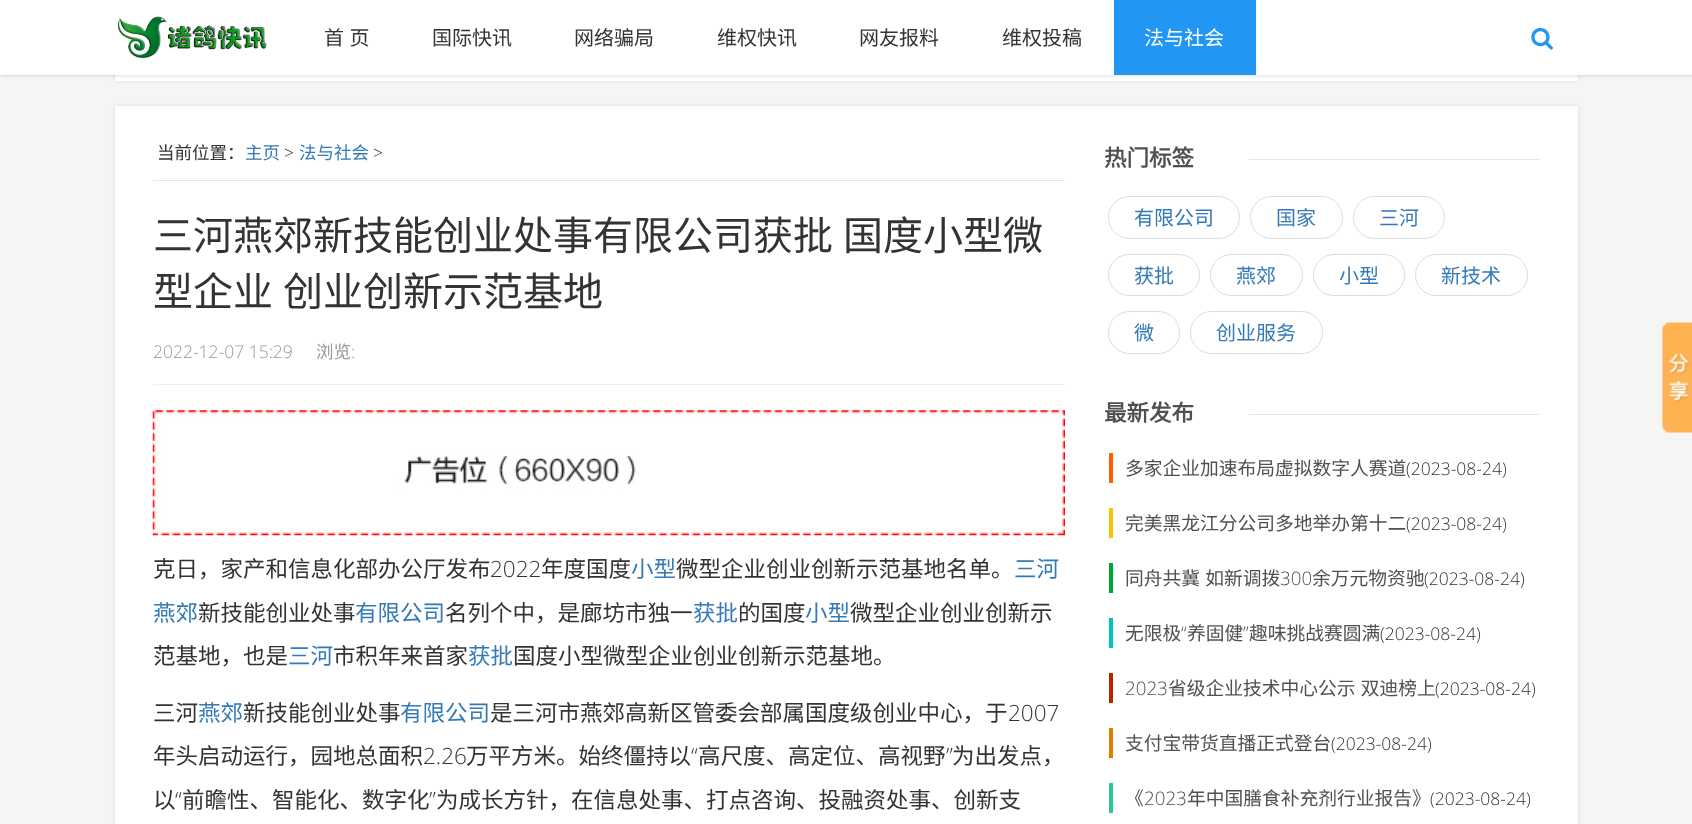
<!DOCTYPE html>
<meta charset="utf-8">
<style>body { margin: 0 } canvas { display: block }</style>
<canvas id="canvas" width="1692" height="824"></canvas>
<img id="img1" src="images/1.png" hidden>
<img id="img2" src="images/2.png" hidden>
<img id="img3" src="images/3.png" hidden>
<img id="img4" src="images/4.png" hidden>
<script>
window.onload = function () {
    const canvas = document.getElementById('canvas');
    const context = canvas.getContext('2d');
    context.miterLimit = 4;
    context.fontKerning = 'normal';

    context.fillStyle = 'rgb(245, 245, 243)';
    context.fillRect(0, 0, 1692, 824);
    context.fillStyle = 'rgba(0, 0, 0, 0.1)';
    context.filter = 'blur(2px)';
    context.beginPath();
    context.rect(115, -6, 1463, 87);
    context.fill();
    context.filter = 'none';
    context.fillStyle = 'rgb(255, 255, 255)';
    context.fillRect(115, 75, 1463, 6);
    context.fillStyle = 'rgba(0, 0, 0, 0.2)';
    context.filter = 'blur(2px)';
    context.beginPath();
    context.rect(0, 0, 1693, 75);
    context.fill();
    context.filter = 'none';
    context.fillStyle = 'rgb(255, 255, 255)';
    context.fillRect(0, 0, 1692, 75);
    context.drawImage(document.getElementById('img1'), 118, 16, 149, 43);
    context.fillStyle = 'rgb(33, 150, 243)';
    context.fillRect(1114, 0, 142, 75);
    context.drawImage(document.getElementById('img2'), 1531, 27, 22, 23);
    context.fillStyle = 'rgba(0, 0, 0, 0.1)';
    context.filter = 'blur(2px)';
    context.beginPath();
    context.rect(115, 106, 1463, 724);
    context.fill();
    context.filter = 'none';
    context.fillStyle = 'rgb(255, 255, 255)';
    context.fillRect(115, 106, 1463, 718);
    context.fillStyle = 'rgb(229, 229, 229)';
    context.fillRect(153, 180, 912, 1);
    context.fillStyle = 'rgb(238, 238, 238)';
    context.fillRect(153, 384, 912, 1);
    context.drawImage(document.getElementById('img3'), 152, 410, 913, 126);
    context.fillStyle = 'rgb(229, 229, 229)';
    context.fillRect(1249, 159, 291, 1);
    context.beginPath();
    context.roundRect(1108.5, 196.5, 131, 42, 21);
    context.strokeStyle = 'rgb(221, 221, 221)';
    context.stroke();
    context.beginPath();
    context.roundRect(1250.5, 196.5, 92, 42, 21);
    context.stroke();
    context.beginPath();
    context.roundRect(1353.5, 196.5, 91, 42, 21);
    context.stroke();
    context.beginPath();
    context.roundRect(1108.5, 254.5, 91, 41, 20.5);
    context.stroke();
    context.beginPath();
    context.roundRect(1210.5, 254.5, 92, 41, 20.5);
    context.stroke();
    context.beginPath();
    context.roundRect(1313.5, 254.5, 91, 41, 20.5);
    context.stroke();
    context.beginPath();
    context.roundRect(1415.5, 254.5, 112, 41, 20.5);
    context.stroke();
    context.beginPath();
    context.roundRect(1108.5, 311.5, 71, 42, 21);
    context.stroke();
    context.beginPath();
    context.roundRect(1190.5, 311.5, 132, 42, 21);
    context.stroke();
    context.fillRect(1249, 414, 291, 1);
    context.fillStyle = 'rgb(253, 95, 0)';
    context.fillRect(1109, 453, 4, 30);
    context.fillStyle = 'rgb(255, 192, 2)';
    context.fillRect(1109, 508, 4, 30);
    context.fillStyle = 'rgb(0, 166, 53)';
    context.fillRect(1109, 563, 4, 30);
    context.fillStyle = 'rgb(0, 195, 196)';
    context.fillRect(1109, 618, 4, 30);
    context.fillStyle = 'rgb(185, 36, 0)';
    context.fillRect(1109, 673, 4, 30);
    context.fillStyle = 'rgb(224, 126, 0)';
    context.fillRect(1109, 728, 4, 30);
    context.fillStyle = 'rgb(39, 199, 144)';
    context.fillRect(1109, 783, 4, 30);
    context.drawImage(document.getElementById('img4'), 1662, 322, 30, 111);
    context.wordSpacing = '1px';
    context.font = '20px Noto Sans CJK SC';
    context.fillStyle = 'rgb(51, 51, 51)';
    context.fillText('首 页', 324, 45);
    context.wordSpacing = '0px';
    context.fillText('国际快讯', 432, 45);
    context.fillText('网络骗局', 574, 45);
    context.fillText('维权快讯', 717, 45);
    context.fillText('网友报料', 859, 45);
    context.fillText('维权投稿', 1002, 45);
    context.fillStyle = 'rgb(255, 255, 255)';
    context.fillText('法与社会', 1144, 45);
    context.font = '17.5px Noto Sans CJK SC';
    context.fillStyle = 'rgb(51, 51, 51)';
    context.fillText('当前位置：', 157, 159);
    context.fillStyle = 'rgb(51, 122, 183)';
    context.fillText('主页', 245, 159);
    context.font = '300 17.5px Open Sans';
    context.fillStyle = 'rgb(51, 51, 51)';
    context.fillText('>', 284, 159);
    context.font = '17.5px Noto Sans CJK SC';
    context.fillStyle = 'rgb(51, 122, 183)';
    context.fillText('法与社会', 299, 159);
    context.font = '300 17.5px Open Sans';
    context.fillStyle = 'rgb(51, 51, 51)';
    context.fillText('>', 373, 159);
    context.wordSpacing = '1px';
    context.font = '40px Noto Sans CJK SC';
    context.fillText('三河燕郊新技能创业处事有限公司获批 国度小型微', 153, 250);
    context.fillText('型企业 创业创新示范基地', 153, 306);
    context.wordSpacing = '0px';
    context.font = '300 17.5px Open Sans';
    context.fillStyle = 'rgb(153, 153, 153)';
    context.fillText('2022-12-07 15:29', 153, 358);
    context.font = '17.5px Noto Sans CJK SC';
    context.fillText('浏览', 316, 358);
    context.font = '300 17.5px Open Sans';
    context.fillText(':', 351, 358);
    context.font = '22.5px Noto Sans CJK SC';
    context.fillStyle = 'rgb(51, 51, 51)';
    context.fillText('克日，家产和信息化部办公厅发布', 153, 577);
    context.font = '300 22.5px Open Sans';
    context.fillText('2022', 490, 577);
    context.font = '22.5px Noto Sans CJK SC';
    context.fillText('年度国度', 541, 577);
    context.fillStyle = 'rgb(51, 122, 183)';
    context.fillText('小型', 631, 577);
    context.fillStyle = 'rgb(51, 51, 51)';
    context.fillText('微型企业创业创新示范基地名单。', 676, 577);
    context.fillStyle = 'rgb(51, 122, 183)';
    context.fillText('三河', 1014, 577);
    context.fillText('燕郊', 153, 621);
    context.fillStyle = 'rgb(51, 51, 51)';
    context.fillText('新技能创业处事', 198, 621);
    context.fillStyle = 'rgb(51, 122, 183)';
    context.fillText('有限公司', 355, 621);
    context.fillStyle = 'rgb(51, 51, 51)';
    context.fillText('名列个中，是廊坊市独一', 445, 621);
    context.fillStyle = 'rgb(51, 122, 183)';
    context.fillText('获批', 693, 621);
    context.fillStyle = 'rgb(51, 51, 51)';
    context.fillText('的国度', 738, 621);
    context.fillStyle = 'rgb(51, 122, 183)';
    context.fillText('小型', 805, 621);
    context.fillStyle = 'rgb(51, 51, 51)';
    context.fillText('微型企业创业创新示', 850, 621);
    context.fillText('范基地，也是', 153, 664);
    context.fillStyle = 'rgb(51, 122, 183)';
    context.fillText('三河', 288, 664);
    context.fillStyle = 'rgb(51, 51, 51)';
    context.fillText('市积年来首家', 333, 664);
    context.fillStyle = 'rgb(51, 122, 183)';
    context.fillText('获批', 468, 664);
    context.fillStyle = 'rgb(51, 51, 51)';
    context.fillText('国度小型微型企业创业创新示范基地。', 513, 664);
    context.fillText('三河', 153, 721);
    context.fillStyle = 'rgb(51, 122, 183)';
    context.fillText('燕郊', 198, 721);
    context.fillStyle = 'rgb(51, 51, 51)';
    context.fillText('新技能创业处事', 243, 721);
    context.fillStyle = 'rgb(51, 122, 183)';
    context.fillText('有限公司', 400, 721);
    context.fillStyle = 'rgb(51, 51, 51)';
    context.fillText('是三河市燕郊高新区管委会部属国度级创业中心，于', 490, 721);
    context.font = '300 22.5px Open Sans';
    context.fillText('2007', 1008, 721);
    context.font = '22.5px Noto Sans CJK SC';
    context.fillText('年头启动运行，园地总面积', 153, 764);
    context.font = '300 22.5px Open Sans';
    context.fillText('2.26', 423, 764);
    context.font = '22.5px Noto Sans CJK SC';
    context.fillText('万平方米。始终僵持以', 466, 764);
    context.font = '300 22.5px Open Sans';
    context.fillText('“', 691, 764);
    context.font = '22.5px Noto Sans CJK SC';
    context.fillText('高尺度、高定位、高视野', 698, 764);
    context.font = '300 22.5px Open Sans';
    context.fillText('”', 946, 764);
    context.font = '22.5px Noto Sans CJK SC';
    context.fillText('为出发点，', 952, 764);
    context.fillText('以', 153, 808);
    context.font = '300 22.5px Open Sans';
    context.fillText('“', 175, 808);
    context.font = '22.5px Noto Sans CJK SC';
    context.fillText('前瞻性、智能化、数字化', 182, 808);
    context.font = '300 22.5px Open Sans';
    context.fillText('”', 429, 808);
    context.font = '22.5px Noto Sans CJK SC';
    context.fillText('为成长方针，在信息处事、打点咨询、投融资处事、创新支', 436, 808);
    context.font = 'bold 22.5px Noto Sans CJK SC';
    context.fillStyle = 'rgb(80, 80, 80)';
    context.fillText('热门标签', 1104, 166);
    context.font = '20px Noto Sans CJK SC';
    context.fillStyle = 'rgb(51, 122, 183)';
    context.fillText('有限公司', 1134, 225);
    context.fillText('国家', 1276, 225);
    context.fillText('三河', 1379, 225);
    context.fillText('获批', 1134, 283);
    context.fillText('燕郊', 1236, 283);
    context.fillText('小型', 1339, 283);
    context.fillText('新技术', 1441, 283);
    context.fillText('微', 1134, 340);
    context.fillText('创业服务', 1216, 340);
    context.font = 'bold 22.5px Noto Sans CJK SC';
    context.fillStyle = 'rgb(80, 80, 80)';
    context.fillText('最新发布', 1104, 421);
    context.font = '18.75px Noto Sans CJK SC';
    context.fillText('多家企业加速布局虚拟数字人赛道', 1125, 475);
    context.font = '300 17.5px Open Sans';
    context.fillStyle = 'rgb(51, 51, 51)';
    context.fillText('(2023-08-24)', 1406, 475);
    context.font = '18.75px Noto Sans CJK SC';
    context.fillStyle = 'rgb(80, 80, 80)';
    context.fillText('完美黑龙江分公司多地举办第十二', 1125, 530);
    context.font = '300 17.5px Open Sans';
    context.fillStyle = 'rgb(51, 51, 51)';
    context.fillText('(2023-08-24)', 1406, 530);
    context.wordSpacing = '1px';
    context.font = '18.75px Noto Sans CJK SC';
    context.fillStyle = 'rgb(80, 80, 80)';
    context.fillText('同舟共冀 如新调拨', 1125, 585);
    context.wordSpacing = '0px';
    context.font = '300 18.75px Open Sans';
    context.fillText('300', 1280, 585);
    context.font = '18.75px Noto Sans CJK SC';
    context.fillText('余万元物资驰', 1312, 585);
    context.font = '300 17.5px Open Sans';
    context.fillStyle = 'rgb(51, 51, 51)';
    context.fillText('(2023-08-24)', 1424, 585);
    context.font = '18.75px Noto Sans CJK SC';
    context.fillStyle = 'rgb(80, 80, 80)';
    context.fillText('无限极', 1125, 640);
    context.font = '300 18.75px Open Sans';
    context.fillText('“', 1181, 640);
    context.font = '18.75px Noto Sans CJK SC';
    context.fillText('养固健', 1187, 640);
    context.font = '300 18.75px Open Sans';
    context.fillText('”', 1243, 640);
    context.font = '18.75px Noto Sans CJK SC';
    context.fillText('趣味挑战赛圆满', 1249, 640);
    context.font = '300 17.5px Open Sans';
    context.fillStyle = 'rgb(51, 51, 51)';
    context.fillText('(2023-08-24)', 1380, 640);
    context.font = '300 18.75px Open Sans';
    context.fillStyle = 'rgb(80, 80, 80)';
    context.fillText('2023', 1125, 695);
    context.wordSpacing = '1px';
    context.font = '18.75px Noto Sans CJK SC';
    context.fillText('省级企业技术中心公示 双迪榜上', 1168, 695);
    context.wordSpacing = '0px';
    context.font = '300 17.5px Open Sans';
    context.fillStyle = 'rgb(51, 51, 51)';
    context.fillText('(2023-08-24)', 1435, 695);
    context.font = '18.75px Noto Sans CJK SC';
    context.fillStyle = 'rgb(80, 80, 80)';
    context.fillText('支付宝带货直播正式登台', 1125, 750);
    context.font = '300 17.5px Open Sans';
    context.fillStyle = 'rgb(51, 51, 51)';
    context.fillText('(2023-08-24)', 1331, 750);
    context.font = '18.75px Noto Sans CJK SC';
    context.fillStyle = 'rgb(80, 80, 80)';
    context.fillText('《', 1125, 805);
    context.font = '300 18.75px Open Sans';
    context.fillText('2023', 1144, 805);
    context.font = '18.75px Noto Sans CJK SC';
    context.fillText('年中国膳食补充剂行业报告》', 1187, 805);
    context.font = '300 17.5px Open Sans';
    context.fillStyle = 'rgb(51, 51, 51)';
    context.fillText('(2023-08-24)', 1430, 805);
};
</script>
